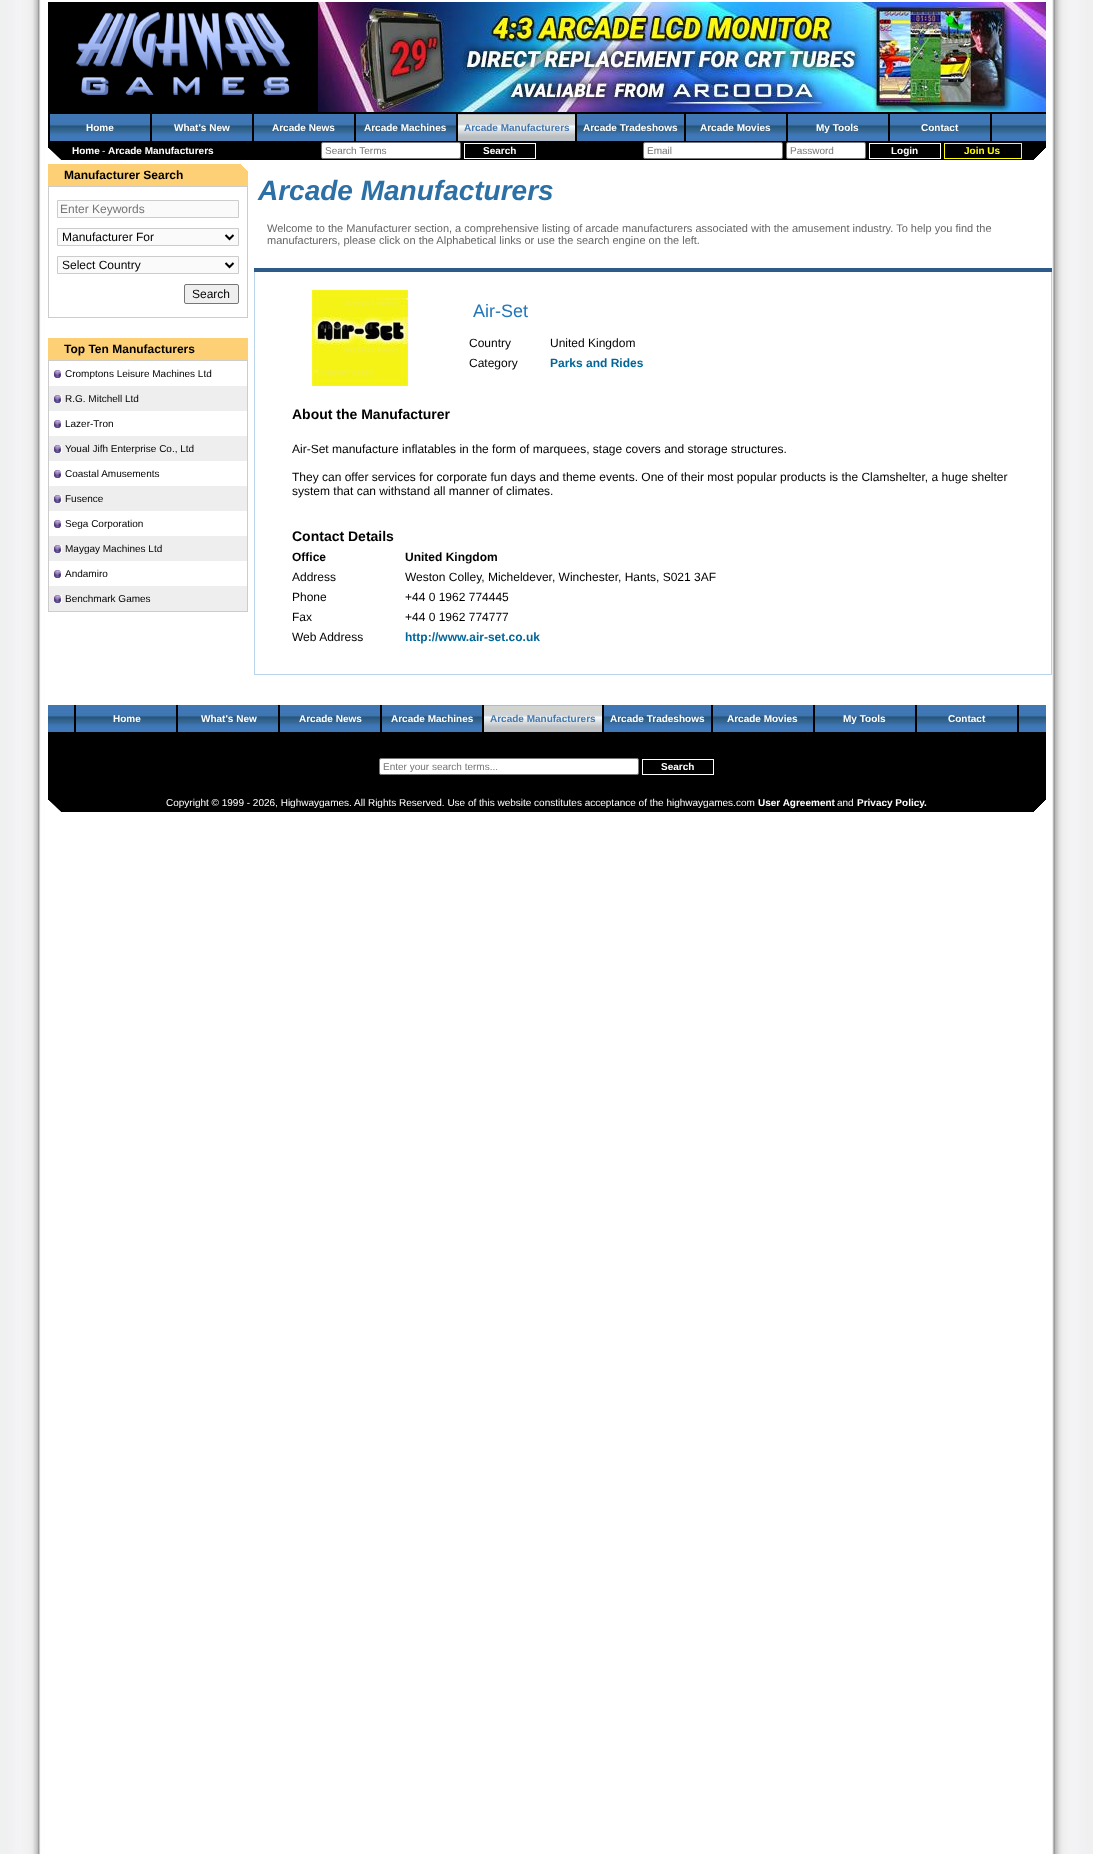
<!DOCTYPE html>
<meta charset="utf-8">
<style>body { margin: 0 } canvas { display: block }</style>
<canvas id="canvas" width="1093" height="1854"></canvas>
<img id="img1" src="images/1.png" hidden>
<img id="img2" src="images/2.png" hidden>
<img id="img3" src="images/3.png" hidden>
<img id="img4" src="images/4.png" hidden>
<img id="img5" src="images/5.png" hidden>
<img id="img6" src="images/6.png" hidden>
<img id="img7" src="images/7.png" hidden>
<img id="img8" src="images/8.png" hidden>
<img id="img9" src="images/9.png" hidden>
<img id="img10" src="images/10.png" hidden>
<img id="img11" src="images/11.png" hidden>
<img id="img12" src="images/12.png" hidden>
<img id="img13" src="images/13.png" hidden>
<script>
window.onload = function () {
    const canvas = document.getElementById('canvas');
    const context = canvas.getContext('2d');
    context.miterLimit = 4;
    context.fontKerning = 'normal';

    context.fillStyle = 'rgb(255, 255, 255)';
    context.fillRect(0, 0, 1093, 1854);
    context.drawImage(document.getElementById('img1'), 0, 0, 1093, 1854);
    context.fillStyle = 'rgb(0, 0, 0)';
    context.fillRect(48, 2, 998, 158);
    context.drawImage(document.getElementById('img2'), 48, 148, 13, 12);
    context.drawImage(document.getElementById('img3'), 1034, 148, 12, 12);
    context.drawImage(document.getElementById('img4'), 76, 12, 214, 83);
    context.drawImage(document.getElementById('img5'), 318, 2, 728, 110);
    context.drawImage(document.getElementById('img6'), 50, 114, 996, 27);
    context.fillRect(150, 114, 2, 27);
    context.fillRect(252, 114, 2, 27);
    context.fillRect(354, 114, 2, 27);
    context.fillRect(456, 114, 2, 27);
    context.fillRect(575, 114, 2, 27);
    context.drawImage(document.getElementById('img7'), 458, 114, 117, 27);
    context.fillRect(684, 114, 2, 27);
    context.fillRect(786, 114, 2, 27);
    context.fillRect(888, 114, 2, 27);
    context.fillRect(990, 114, 2, 27);
    context.fillStyle = 'rgb(255, 255, 255)';
    context.beginPath();
    context.roundRect(321.5, 142.5, 139, 16, 1.5);
    context.fill();
    context.strokeStyle = 'rgb(118, 118, 118)';
    context.stroke();
    context.strokeStyle = 'rgb(255, 255, 255)';
    context.strokeRect(464.5, 143.5, 71, 15);
    context.beginPath();
    context.roundRect(643.5, 142.5, 139, 16, 1.5);
    context.fill();
    context.strokeStyle = 'rgb(118, 118, 118)';
    context.stroke();
    context.beginPath();
    context.roundRect(786.5, 142.5, 79, 16, 1.5);
    context.fill();
    context.stroke();
    context.strokeStyle = 'rgb(255, 255, 255)';
    context.strokeRect(869.5, 143.5, 71, 15);
    context.strokeStyle = 'rgb(255, 255, 0)';
    context.strokeRect(944.5, 143.5, 77, 15);
    context.fillStyle = 'rgb(253, 208, 117)';
    context.fillRect(48, 164, 200, 22);
    context.drawImage(document.getElementById('img8'), 241, 164, 7, 7);
    context.strokeStyle = 'rgb(204, 204, 204)';
    context.strokeRect(48.5, 186.5, 199, 131);
    context.fillStyle = 'rgb(250, 250, 250)';
    context.beginPath();
    context.rect(57.5, 200.5, 181, 17);
    context.fill();
    context.stroke();
    context.beginPath();
    context.rect(57.5, 228.5, 181, 17);
    context.fill();
    context.stroke();
    context.beginPath();
    context.moveTo(225.5, 235);
    context.lineTo(229.5, 239);
    context.lineTo(233.5, 235);
    context.strokeStyle = 'rgb(0, 0, 0)';
    context.lineWidth = 2;
    context.stroke();
    context.beginPath();
    context.rect(57.5, 256.5, 181, 17);
    context.fill();
    context.strokeStyle = 'rgb(204, 204, 204)';
    context.lineWidth = 1;
    context.stroke();
    context.beginPath();
    context.moveTo(225.5, 263);
    context.lineTo(229.5, 267);
    context.lineTo(233.5, 263);
    context.strokeStyle = 'rgb(0, 0, 0)';
    context.lineWidth = 2;
    context.stroke();
    context.fillStyle = 'rgb(239, 239, 239)';
    context.beginPath();
    context.roundRect(184.5, 284.5, 54, 19, 1.5);
    context.fill();
    context.strokeStyle = 'rgb(118, 118, 118)';
    context.lineWidth = 1;
    context.stroke();
    context.fillStyle = 'rgb(253, 208, 117)';
    context.fillRect(48, 338, 200, 22);
    context.strokeStyle = 'rgb(204, 204, 204)';
    context.strokeRect(48.5, 360.5, 199, 251);
    context.drawImage(document.getElementById('img9'), 54, 370, 7, 8);
    context.fillStyle = 'rgb(238, 238, 238)';
    context.fillRect(49, 386, 198, 25);
    context.drawImage(document.getElementById('img10'), 54, 395, 8, 8);
    context.drawImage(document.getElementById('img9'), 54, 420, 7, 8);
    context.fillRect(49, 436, 198, 25);
    context.drawImage(document.getElementById('img10'), 54, 445, 8, 8);
    context.drawImage(document.getElementById('img9'), 54, 470, 7, 8);
    context.fillRect(49, 486, 198, 25);
    context.drawImage(document.getElementById('img10'), 54, 495, 8, 8);
    context.drawImage(document.getElementById('img9'), 54, 520, 7, 8);
    context.fillRect(49, 536, 198, 25);
    context.drawImage(document.getElementById('img10'), 54, 545, 8, 8);
    context.drawImage(document.getElementById('img9'), 54, 570, 7, 8);
    context.fillRect(49, 586, 198, 25);
    context.drawImage(document.getElementById('img10'), 54, 595, 8, 8);
    context.fillStyle = 'rgb(186, 213, 234)';
    context.fillRect(1051, 270, 1, 405);
    context.fillRect(254, 674, 798, 1);
    context.fillRect(254, 270, 1, 405);
    context.fillStyle = 'rgb(45, 92, 138)';
    context.fillRect(254, 268, 798, 4);
    context.drawImage(document.getElementById('img11'), 312, 290, 96, 96);
    context.fillStyle = 'rgb(0, 0, 0)';
    context.fillRect(48, 732, 998, 80);
    context.drawImage(document.getElementById('img2'), 48, 800, 13, 12);
    context.drawImage(document.getElementById('img3'), 1034, 800, 12, 12);
    context.drawImage(document.getElementById('img12'), 48, 705, 998, 27);
    context.fillRect(176, 705, 2, 27);
    context.fillRect(74, 705, 2, 27);
    context.fillRect(278, 705, 2, 27);
    context.fillRect(380, 705, 2, 27);
    context.fillRect(482, 705, 2, 27);
    context.fillRect(602, 705, 2, 27);
    context.drawImage(document.getElementById('img13'), 484, 705, 118, 27);
    context.fillRect(711, 705, 2, 27);
    context.fillRect(813, 705, 2, 27);
    context.fillRect(915, 705, 2, 27);
    context.fillRect(1017, 705, 2, 27);
    context.fillStyle = 'rgb(255, 255, 255)';
    context.beginPath();
    context.roundRect(379.5, 758.5, 259, 16, 1.5);
    context.fill();
    context.strokeStyle = 'rgb(118, 118, 118)';
    context.stroke();
    context.strokeStyle = 'rgb(255, 255, 255)';
    context.strokeRect(642.5, 759.5, 71, 15);
    context.font = 'bold 10px Liberation Sans';
    context.fillText('Home', 86, 131);
    context.fillText('What\'s New', 174, 131);
    context.fillText('Arcade News', 272, 131);
    context.fillText('Arcade Machines', 364, 131);
    context.fillStyle = 'rgb(68, 119, 170)';
    context.fillText('Arcade Manufacturers', 464, 131);
    context.fillStyle = 'rgb(255, 255, 255)';
    context.fillText('Arcade Tradeshows', 583, 131);
    context.fillText('Arcade Movies', 700, 131);
    context.fillText('My Tools', 816, 131);
    context.fillText('Contact', 921, 131);
    context.fillText('Home', 72, 154);
    context.font = '10px Liberation Sans';
    context.fillText('-', 102, 154);
    context.font = 'bold 10px Liberation Sans';
    context.fillText('Arcade Manufacturers', 108, 154);
    context.font = '10px Liberation Sans';
    context.fillStyle = 'rgb(117, 117, 117)';
    context.fillText('Search Terms', 325, 154);
    context.font = 'bold 10px Liberation Sans';
    context.fillStyle = 'rgb(255, 255, 255)';
    context.fillText('Search', 483, 154);
    context.font = '10px Liberation Sans';
    context.fillStyle = 'rgb(117, 117, 117)';
    context.fillText('Email', 647, 154);
    context.fillText('Password', 790, 154);
    context.font = 'bold 10px Liberation Sans';
    context.fillStyle = 'rgb(255, 255, 255)';
    context.fillText('Login', 891, 154);
    context.fillStyle = 'rgb(255, 255, 0)';
    context.fillText('Join Us', 964, 154);
    context.font = 'bold 12px Liberation Sans';
    context.fillStyle = 'rgb(0, 0, 0)';
    context.fillText('Manufacturer Search', 64, 179);
    context.font = '12px Liberation Sans';
    context.fillStyle = 'rgb(117, 117, 117)';
    context.fillText('Enter Keywords', 60, 213);
    context.fillStyle = 'rgb(0, 0, 0)';
    context.fillText('Manufacturer For', 62, 241);
    context.fillText('Select Country', 62, 269);
    context.fillText('Search', 192, 298);
    context.font = 'bold 12px Liberation Sans';
    context.fillText('Top Ten Manufacturers', 64, 353);
    context.font = '10px Liberation Sans';
    context.fillText('Cromptons Leisure Machines Ltd', 65, 377);
    context.fillText('R.G. Mitchell Ltd', 65, 402);
    context.fillText('Lazer-Tron', 65, 427);
    context.fillText('Youal Jifh Enterprise Co., Ltd', 65, 452);
    context.fillText('Coastal Amusements', 65, 477);
    context.fillText('Fusence', 65, 502);
    context.fillText('Sega Corporation', 65, 527);
    context.fillText('Maygay Machines Ltd', 65, 552);
    context.fillText('Andamiro', 65, 577);
    context.fillText('Benchmark Games', 65, 602);
    context.font = 'italic bold 28px Liberation Sans';
    context.fillStyle = 'rgb(44, 112, 165)';
    context.fillText('Arcade Manufacturers', 258, 200);
    context.font = '11px Liberation Sans';
    context.fillStyle = 'rgb(102, 102, 102)';
    context.fillText('Welcome to the Manufacturer section, a comprehensive listing of arcade manufacturers associated with the amusement industry. To help you find the', 267, 232);
    context.fillText('manufacturers, please click on the Alphabetical links or use the search engine on the left.', 267, 244);
    context.font = '18px Liberation Sans';
    context.fillStyle = 'rgb(34, 119, 187)';
    context.fillText('Air-Set', 473, 317);
    context.font = '12px Liberation Sans';
    context.fillStyle = 'rgb(0, 0, 0)';
    context.fillText('Country', 469, 347);
    context.fillText('United Kingdom', 550, 347);
    context.fillText('Category', 469, 367);
    context.font = 'bold 12px Liberation Sans';
    context.fillStyle = 'rgb(0, 102, 153)';
    context.fillText('Parks and Rides', 550, 367);
    context.font = 'bold 14px Liberation Sans';
    context.fillStyle = 'rgb(0, 0, 0)';
    context.fillText('About the Manufacturer', 292, 419);
    context.font = '12px Liberation Sans';
    context.fillText('Air-Set manufacture inflatables in the form of marquees, stage covers and storage structures.', 292, 453);
    context.fillText('They can offer services for corporate fun days and theme events. One of their most popular products is the Clamshelter, a huge shelter', 292, 481);
    context.fillText('system that can withstand all manner of climates.', 292, 495);
    context.font = 'bold 14px Liberation Sans';
    context.fillText('Contact Details', 292, 541);
    context.font = 'bold 12px Liberation Sans';
    context.fillText('Office', 292, 561);
    context.fillText('United Kingdom', 405, 561);
    context.font = '12px Liberation Sans';
    context.fillText('Address', 292, 581);
    context.fillText('Weston Colley, Micheldever, Winchester, Hants, S021 3AF', 405, 581);
    context.fillText('Phone', 292, 601);
    context.fillText('+44 0 1962 774445', 405, 601);
    context.fillText('Fax', 292, 621);
    context.fillText('+44 0 1962 774777', 405, 621);
    context.fillText('Web Address', 292, 641);
    context.font = 'bold 12px Liberation Sans';
    context.fillStyle = 'rgb(0, 102, 153)';
    context.fillText('http://www.air-set.co.uk', 405, 641);
    context.font = 'bold 10px Liberation Sans';
    context.fillStyle = 'rgb(255, 255, 255)';
    context.fillText('Home', 113, 722);
    context.fillText('What\'s New', 201, 722);
    context.fillText('Arcade News', 299, 722);
    context.fillText('Arcade Machines', 391, 722);
    context.fillStyle = 'rgb(68, 119, 170)';
    context.fillText('Arcade Manufacturers', 490, 722);
    context.fillStyle = 'rgb(255, 255, 255)';
    context.fillText('Arcade Tradeshows', 610, 722);
    context.fillText('Arcade Movies', 727, 722);
    context.fillText('My Tools', 843, 722);
    context.fillText('Contact', 948, 722);
    context.font = '10px Liberation Sans';
    context.fillStyle = 'rgb(117, 117, 117)';
    context.fillText('Enter your search terms...', 383, 770);
    context.font = 'bold 10px Liberation Sans';
    context.fillStyle = 'rgb(255, 255, 255)';
    context.fillText('Search', 661, 770);
    context.font = '10px Liberation Sans';
    context.fillText('Copyright © 1999 - 2026, Highwaygames. All Rights Reserved. Use of this website constitutes acceptance of the highwaygames.com', 166, 806);
    context.font = 'bold 10px Liberation Sans';
    context.fillText('User Agreement', 758, 806);
    context.font = '10px Liberation Sans';
    context.fillText('and', 837, 806);
    context.font = 'bold 10px Liberation Sans';
    context.fillText('Privacy Policy.', 857, 806);
};
</script>
